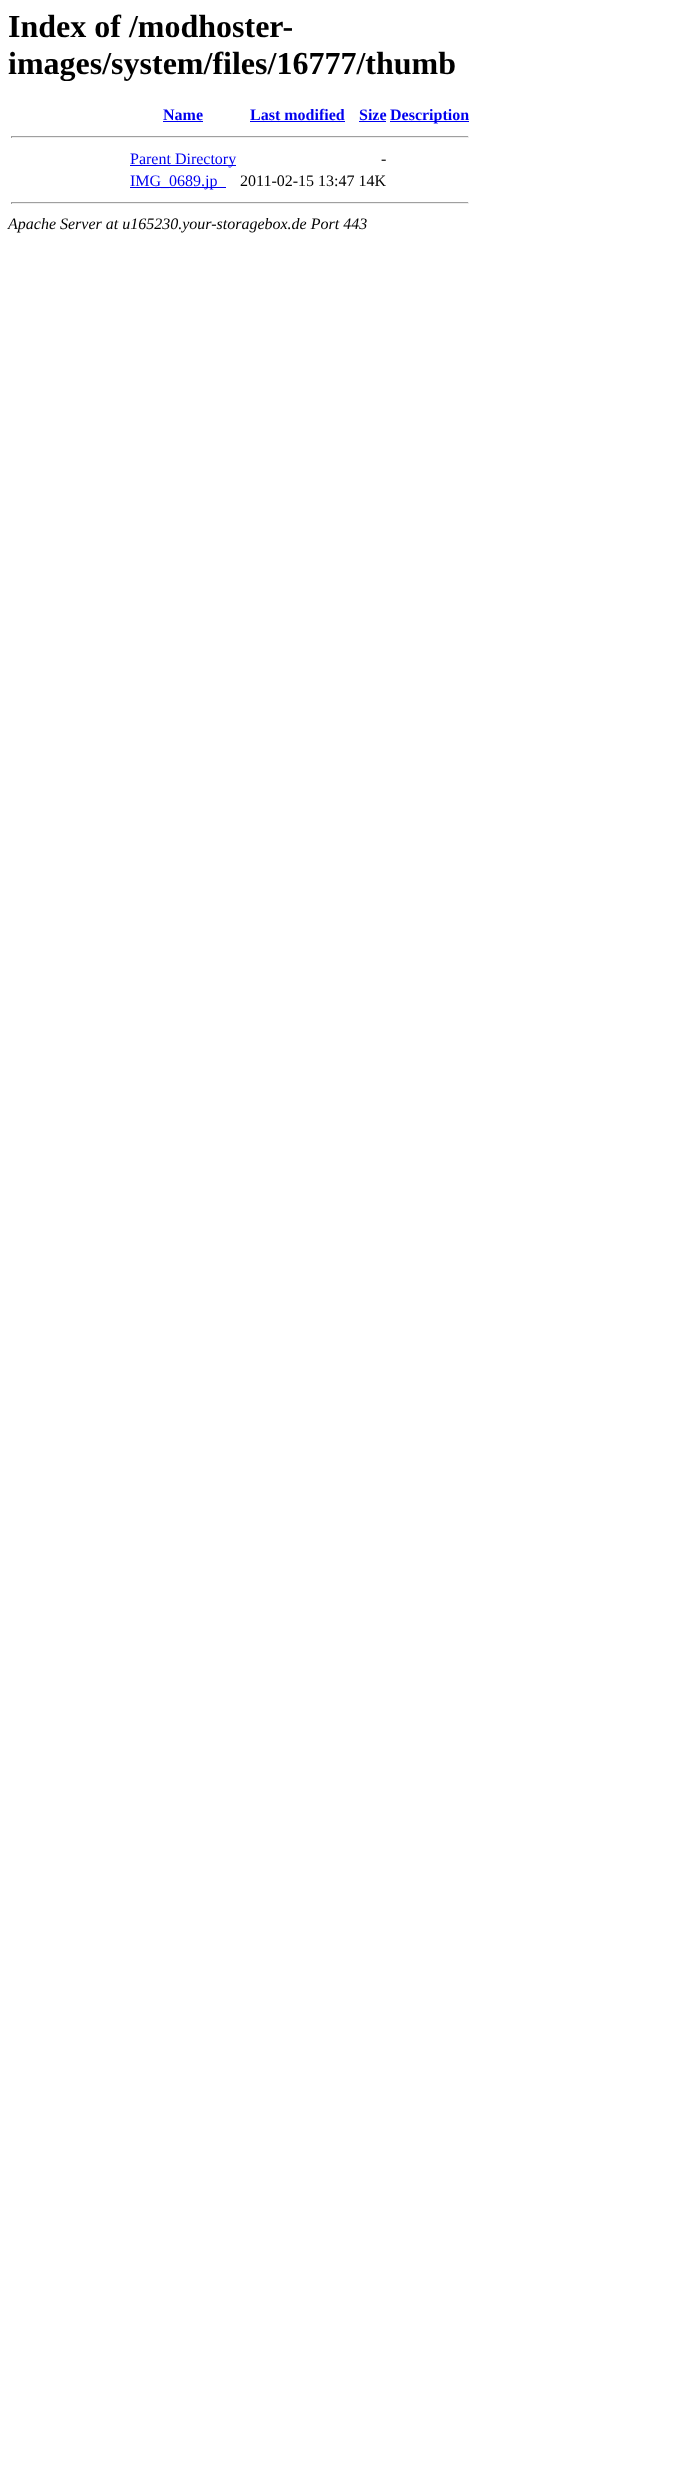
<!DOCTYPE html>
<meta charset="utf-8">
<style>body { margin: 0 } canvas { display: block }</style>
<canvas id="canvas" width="673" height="2484"></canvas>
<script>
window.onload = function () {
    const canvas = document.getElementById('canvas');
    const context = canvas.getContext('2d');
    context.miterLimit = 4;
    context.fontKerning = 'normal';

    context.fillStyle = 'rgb(255, 255, 255)';
    context.fillRect(0, 0, 673, 2484);
    context.fillStyle = 'rgb(0, 0, 238)';
    context.fillRect(163, 121, 40, 1);
    context.fillRect(250, 121, 95, 1);
    context.fillRect(359, 121, 27, 1);
    context.fillRect(390, 121, 79, 1);
    context.fillStyle = 'rgb(159, 159, 159)';
    context.fillRect(11, 136, 458, 1);
    context.fillStyle = 'rgb(238, 238, 238)';
    context.fillRect(468, 136, 1, 2);
    context.fillRect(11, 137, 458, 1);
    context.fillStyle = 'rgb(159, 159, 159)';
    context.fillRect(11, 136, 1, 2);
    context.fillStyle = 'rgb(0, 0, 238)';
    context.fillRect(130, 165, 106, 1);
    context.fillRect(130, 187, 96, 1);
    context.fillStyle = 'rgb(159, 159, 159)';
    context.fillRect(11, 202, 458, 1);
    context.fillStyle = 'rgb(238, 238, 238)';
    context.fillRect(468, 202, 1, 2);
    context.fillRect(11, 203, 458, 1);
    context.fillStyle = 'rgb(159, 159, 159)';
    context.fillRect(11, 202, 1, 2);
    context.font = 'bold 32px Liberation Serif';
    context.fillStyle = 'rgb(0, 0, 0)';
    context.fillText('Index of /modhoster-', 8, 37);
    context.fillText('images/system/files/16777/thumb', 8, 74);
    context.font = 'bold 16px Liberation Serif';
    context.fillStyle = 'rgb(0, 0, 238)';
    context.fillText('Name', 163, 120);
    context.fillText('Last modified', 250, 120);
    context.fillText('Size', 359, 120);
    context.fillText('Description', 390, 120);
    context.font = '16px Liberation Serif';
    context.fillText('Parent Directory', 130, 164);
    context.fillStyle = 'rgb(0, 0, 0)';
    context.fillText('-', 381, 164);
    context.fillStyle = 'rgb(0, 0, 238)';
    context.fillText('IMG_0689.jp', 130, 186);
    context.fillStyle = 'rgb(0, 0, 0)';
    context.fillText('2011-02-15 13:47 14K', 240, 186);
    context.font = 'italic 16px Liberation Serif';
    context.fillText('Apache Server at u165230.your-storagebox.de Port 443', 8, 229);
};
</script>
